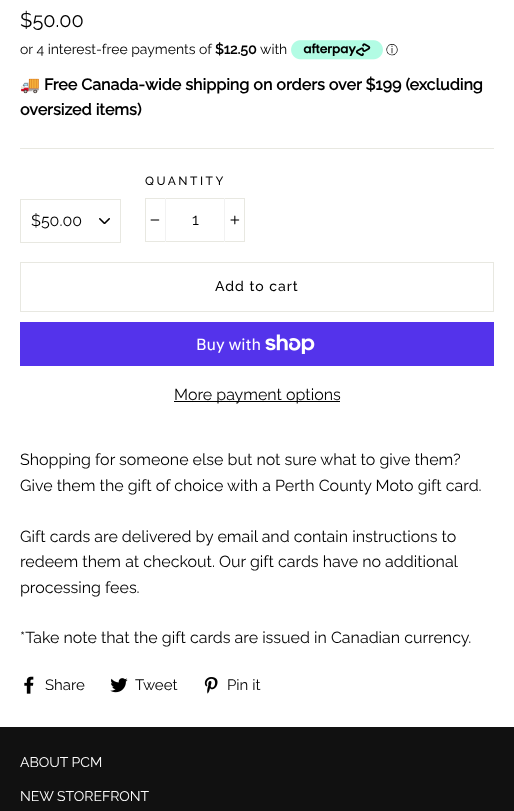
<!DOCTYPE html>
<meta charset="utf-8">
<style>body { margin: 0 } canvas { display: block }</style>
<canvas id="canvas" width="514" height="811"></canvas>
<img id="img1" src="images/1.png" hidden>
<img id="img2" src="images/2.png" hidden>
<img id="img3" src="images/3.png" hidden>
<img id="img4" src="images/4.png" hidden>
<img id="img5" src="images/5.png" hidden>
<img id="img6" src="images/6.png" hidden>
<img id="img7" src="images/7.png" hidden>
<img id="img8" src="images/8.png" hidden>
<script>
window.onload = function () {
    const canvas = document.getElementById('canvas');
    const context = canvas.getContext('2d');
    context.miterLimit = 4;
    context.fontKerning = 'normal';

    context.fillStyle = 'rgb(255, 255, 255)';
    context.fillRect(0, 0, 514, 811);
    context.drawImage(document.getElementById('img1'), 291, 40, 92, 20);
    context.fillStyle = 'rgb(232, 232, 225)';
    context.fillRect(20, 148, 474, 1);
    context.drawImage(document.getElementById('img2'), 99, 218, 11, 6);
    context.strokeStyle = 'rgb(232, 232, 225)';
    context.strokeRect(20.5, 199.5, 100, 43);
    context.strokeRect(145.5, 198.5, 99, 43);
    context.fillStyle = 'rgb(242, 242, 242)';
    context.fillRect(165, 198, 1, 44);
    context.drawImage(document.getElementById('img3'), 150, 219, 10, 2);
    context.fillRect(224, 198, 1, 44);
    context.drawImage(document.getElementById('img4'), 230, 215, 10, 10);
    context.strokeRect(20.5, 262.5, 473, 49);
    context.fillStyle = 'rgb(84, 51, 235)';
    context.fillRect(20, 322, 474, 44);
    context.drawImage(document.getElementById('img5'), 265, 334, 50, 20);
    context.fillStyle = 'rgb(0, 0, 0)';
    context.fillRect(174, 401, 166, 1);
    context.drawImage(document.getElementById('img6'), 24, 676, 10, 18);
    context.drawImage(document.getElementById('img7'), 110, 678, 18, 15);
    context.drawImage(document.getElementById('img8'), 204, 677, 14, 17);
    context.fillStyle = 'rgb(17, 17, 17)';
    context.fillRect(0, 727, 514, 84);
    context.font = '20px Raleway';
    context.fillStyle = 'rgb(0, 0, 0)';
    context.fillText('$50.00', 20, 27);
    context.font = '14px Raleway';
    context.fillText('or 4 interest-free payments of', 20, 54);
    context.font = 'bold 14px Raleway';
    context.fillText('$12.50', 215, 54);
    context.font = '14px Raleway';
    context.fillText('with', 260, 54);
    context.font = '500 12px WenQuanYi Zen Hei';
    context.fillText('ⓘ', 386, 54);
    context.font = 'bold 16px Noto Color Emoji';
    context.fillText('🚚', 20, 90);
    context.font = 'bold 16px Raleway';
    context.fillText('Free Canada-wide shipping on orders over $199 (excluding', 44, 90);
    context.fillText('oversized items)', 20, 115);
    context.font = '16px Raleway';
    context.fillText('$50.00', 31, 226);
    context.letterSpacing = '2.5px';
    context.font = '500 12px Raleway';
    context.fillText('QUANTITY', 145, 185);
    context.letterSpacing = '0px';
    context.font = '16px Raleway';
    context.fillText('1', 192, 225);
    context.letterSpacing = '1px';
    context.font = '500 14px Raleway';
    context.fillText('Add to cart', 215, 291);
    context.letterSpacing = '0px';
    context.font = '16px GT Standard';
    context.fillStyle = 'rgb(255, 255, 255)';
    context.fillText('Buy with', 196, 350);
    context.font = '16px Raleway';
    context.fillStyle = 'rgb(0, 0, 0)';
    context.fillText('More payment options', 174, 400);
    context.fillText('Shopping for someone else but not sure what to give them?', 20, 465);
    context.fillText('Give them the gift of choice with a Perth County Moto gift card.', 20, 491);
    context.fillText('Gift cards are delivered by email and contain instructions to', 20, 542);
    context.fillText('redeem them at checkout. Our gift cards have no additional', 20, 567);
    context.fillText('processing fees.', 20, 593);
    context.fillText('*Take note that the gift cards are issued in Canadian currency.', 20, 643);
    context.font = '15px Raleway';
    context.fillText('Share', 45, 690);
    context.fillText('Tweet', 135, 690);
    context.fillText('Pin it', 227, 690);
    context.font = '14px Raleway';
    context.fillStyle = 'rgb(255, 255, 255)';
    context.fillText('ABOUT PCM', 20, 767);
    context.fillText('NEW STOREFRONT', 20, 801);
};
</script>
